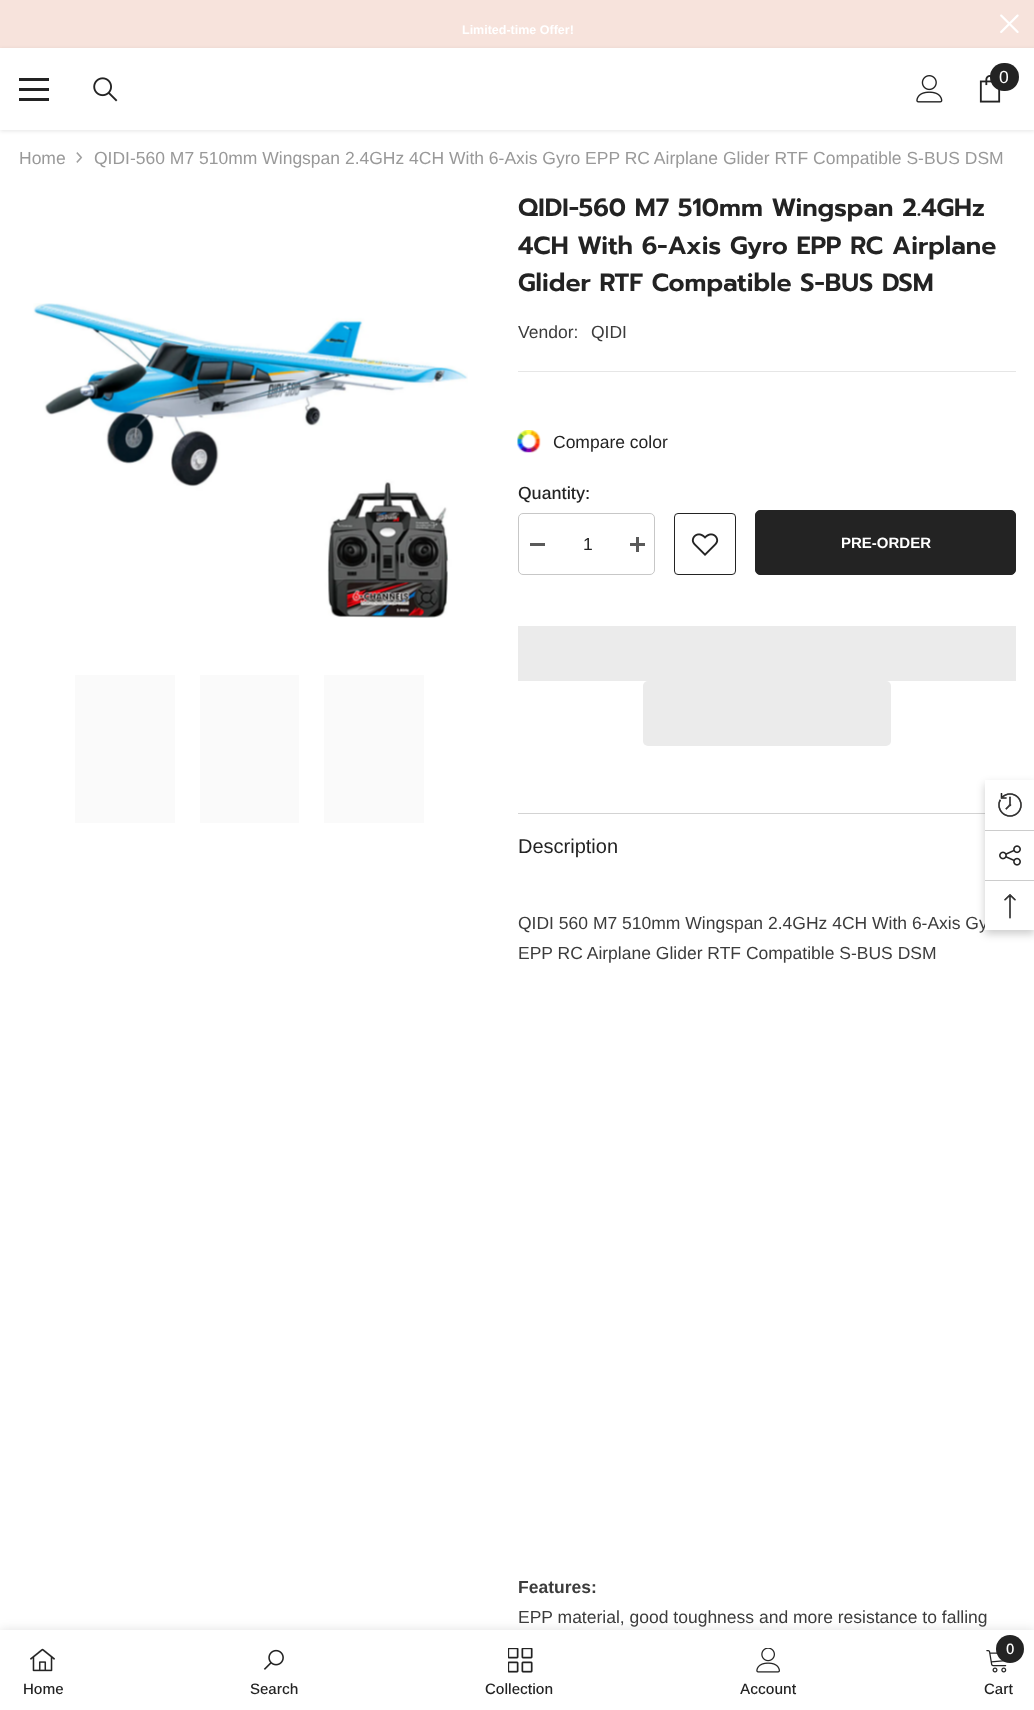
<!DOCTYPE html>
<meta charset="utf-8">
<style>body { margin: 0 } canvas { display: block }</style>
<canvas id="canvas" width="1034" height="1710"></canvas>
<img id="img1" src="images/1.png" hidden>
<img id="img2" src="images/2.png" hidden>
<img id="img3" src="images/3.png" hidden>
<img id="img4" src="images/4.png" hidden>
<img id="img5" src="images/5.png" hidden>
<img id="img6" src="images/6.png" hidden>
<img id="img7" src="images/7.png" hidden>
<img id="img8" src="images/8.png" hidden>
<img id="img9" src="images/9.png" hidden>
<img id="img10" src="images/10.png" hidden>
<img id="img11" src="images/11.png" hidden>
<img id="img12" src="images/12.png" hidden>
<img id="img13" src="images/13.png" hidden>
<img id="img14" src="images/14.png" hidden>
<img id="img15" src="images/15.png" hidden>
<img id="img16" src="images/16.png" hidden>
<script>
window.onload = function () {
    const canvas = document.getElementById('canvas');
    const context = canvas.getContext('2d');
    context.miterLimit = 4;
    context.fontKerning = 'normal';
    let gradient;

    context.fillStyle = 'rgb(247, 227, 220)';
    context.fillRect(0, 0, 1034, 1710);
    context.drawImage(document.getElementById('img1'), 1000, 14, 19, 19);
    context.fillStyle = 'rgb(255, 255, 255)';
    context.fillRect(0, 130, 1034, 1500);
    context.fillStyle = 'rgba(0, 0, 0, 0.1)';
    context.filter = 'blur(2px)';
    context.beginPath();
    context.rect(0, 49, 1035, 82);
    context.fill();
    context.filter = 'none';
    context.fillStyle = 'rgb(255, 255, 255)';
    context.fillRect(0, 48, 1034, 82);
    context.fillStyle = 'rgb(35, 35, 35)';
    context.fillRect(19, 88, 30, 3);
    context.fillRect(19, 78, 30, 3);
    context.fillRect(19, 98, 30, 3);
    context.drawImage(document.getElementById('img2'), 93, 77, 25, 25);
    context.drawImage(document.getElementById('img3'), 916, 75, 27, 28);
    context.drawImage(document.getElementById('img4'), 979, 75, 22, 28);
    context.beginPath();
    context.roundRect(990, 63, 29, 28, 14);
    context.fill();
    context.drawImage(document.getElementById('img5'), 76, 152, 7, 11);
    context.drawImage(document.getElementById('img6'), 33, 303, 435, 315);
    gradient = context.createLinearGradient(-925, 749, 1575, 749);
    gradient.addColorStop(0.04, 'rgb(250, 250, 250)');
    gradient.addColorStop(0.25, 'rgb(241, 242, 243)');
    gradient.addColorStop(0.36, 'rgb(250, 250, 250)');
    context.fillStyle = gradient;
    context.fillRect(75, 675, 100, 148);
    gradient = context.createLinearGradient(-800, 749, 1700, 749);
    gradient.addColorStop(0.04, 'rgb(250, 250, 250)');
    gradient.addColorStop(0.25, 'rgb(241, 242, 243)');
    gradient.addColorStop(0.36, 'rgb(250, 250, 250)');
    context.fillStyle = gradient;
    context.fillRect(200, 675, 99, 148);
    gradient = context.createLinearGradient(-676, 749, 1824, 749);
    gradient.addColorStop(0.04, 'rgb(250, 250, 250)');
    gradient.addColorStop(0.25, 'rgb(241, 242, 243)');
    gradient.addColorStop(0.36, 'rgb(250, 250, 250)');
    context.fillStyle = gradient;
    context.fillRect(324, 675, 100, 148);
    context.fillStyle = 'rgb(230, 230, 230)';
    context.fillRect(518, 371, 498, 1);
    context.drawImage(document.getElementById('img7'), 517, 430, 24, 23);
    context.beginPath();
    context.roundRect(518.5, 513.5, 136, 61, 4.5);
    context.strokeStyle = 'rgb(199, 199, 199)';
    context.stroke();
    context.fillStyle = 'rgb(90, 90, 90)';
    context.fillRect(530, 543, 15, 3);
    context.fillRect(630, 543, 15, 3);
    context.fillRect(636, 537, 3, 15);
    context.beginPath();
    context.roundRect(674.5, 513.5, 61, 61, 3.5);
    context.strokeStyle = 'rgb(35, 35, 35)';
    context.stroke();
    context.drawImage(document.getElementById('img8'), 691, 533, 28, 23);
    context.fillStyle = 'rgb(35, 35, 35)';
    context.beginPath();
    context.roundRect(755.5, 510.5, 260, 64, 4.5);
    context.fill();
    context.stroke();
    context.fillStyle = 'rgb(235, 235, 235)';
    context.fillRect(518, 626, 498, 55);
    context.beginPath();
    context.roundRect(643, 681, 248, 65, 5);
    context.fill();
    context.fillStyle = 'rgb(211, 211, 211)';
    context.fillRect(518, 813, 467, 1);
    context.fillStyle = 'rgba(0, 0, 0, 0.12)';
    context.filter = 'blur(5.5px)';
    context.beginPath();
    context.rect(0, 1630, 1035, 80);
    context.fill();
    context.filter = 'none';
    context.fillStyle = 'rgb(255, 255, 255)';
    context.fillRect(0, 1630, 1034, 80);
    context.drawImage(document.getElementById('img9'), 30, 1648, 25, 24);
    context.drawImage(document.getElementById('img10'), 263, 1649, 21, 21);
    context.drawImage(document.getElementById('img11'), 508, 1648, 25, 25);
    context.drawImage(document.getElementById('img12'), 756, 1648, 24, 25);
    context.drawImage(document.getElementById('img13'), 986, 1650, 21, 23);
    context.fillStyle = 'rgb(35, 35, 35)';
    context.beginPath();
    context.arc(1010, 1649, 14, 0, 2 * Math.PI);
    context.fill();
    context.fillStyle = 'rgba(0, 0, 0, 0.2)';
    context.filter = 'blur(4.5px)';
    context.beginPath();
    context.rect(985, 784, 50, 150);
    context.fill();
    context.filter = 'none';
    context.font = 'bold 12.5px Arimo';
    context.fillStyle = 'rgb(255, 255, 255)';
    context.fillText('Limited-time Offer!', 462, 34);
    context.font = '17.5px Arimo';
    context.fillText('0', 999, 83);
    context.fillStyle = 'rgb(153, 153, 153)';
    context.fillText('Home', 19, 164);
    context.fillText('QIDI-560 M7 510mm Wingspan 2.4GHz 4CH With 6-Axis Gyro EPP RC Airplane Glider RTF Compatible S-BUS DSM', 94, 164);
    context.font = '600 25px Prompt';
    context.fillStyle = 'rgb(35, 35, 35)';
    context.fillText('QIDI-560 M7 510mm Wingspan 2.4GHz', 518, 216);
    context.fillText('4CH With 6-Axis Gyro EPP RC Airplane', 518, 254);
    context.fillText('Glider RTF Compatible S-BUS DSM', 518, 291);
    context.font = '17.5px Arimo';
    context.fillStyle = 'rgb(60, 60, 60)';
    context.fillText('Vendor:', 518, 338);
    context.fillText('QIDI', 591, 338);
    context.font = '17.5px Liberation Sans';
    context.fillStyle = 'rgb(35, 35, 35)';
    context.fillText('Compare color', 553, 448);
    context.font = '500 17.5px Arimo';
    context.fillText('Quantity:', 518, 499);
    context.font = '17.5px Arimo';
    context.fillText('1', 583, 550);
    context.font = 'bold 15px Arimo';
    context.fillStyle = 'rgb(255, 255, 255)';
    context.fillText('PRE-ORDER', 841, 548);
    context.font = '20px Arimo';
    context.fillStyle = 'rgb(35, 35, 35)';
    context.fillText('Description', 518, 853);
    context.font = '17.5px Arimo';
    context.fillStyle = 'rgb(60, 60, 60)';
    context.fillText('QIDI 560 M7 510mm Wingspan 2.4GHz 4CH With 6-Axis Gy', 518, 929);
    context.fillText('EPP RC Airplane Glider RTF Compatible S-BUS DSM', 518, 959);
    context.font = 'bold 17.5px Arimo';
    context.fillText('Features:', 518, 1593);
    context.font = '17.5px Arimo';
    context.fillText('EPP material, good toughness and more resistance to falling', 518, 1623);
    context.font = '500 15px Arimo';
    context.fillStyle = 'rgb(35, 35, 35)';
    context.fillText('Home', 23, 1694);
    context.fillText('Search', 250, 1694);
    context.fillText('Collection', 485, 1694);
    context.fillText('Account', 740, 1694);
    context.fillStyle = 'rgb(255, 255, 255)';
    context.fillText('0', 1006, 1654);
    context.fillStyle = 'rgb(35, 35, 35)';
    context.fillText('Cart', 984, 1694);
    context.fillStyle = 'rgb(255, 255, 255)';
    context.fillRect(985, 780, 49, 150);
    context.drawImage(document.getElementById('img14'), 998, 793, 24, 24);
    context.fillStyle = 'rgb(204, 204, 204)';
    context.fillRect(985, 830, 49, 1);
    context.drawImage(document.getElementById('img15'), 999, 845, 22, 21);
    context.fillRect(985, 880, 49, 1);
    context.drawImage(document.getElementById('img16'), 1004, 894, 12, 25);
};
</script>
